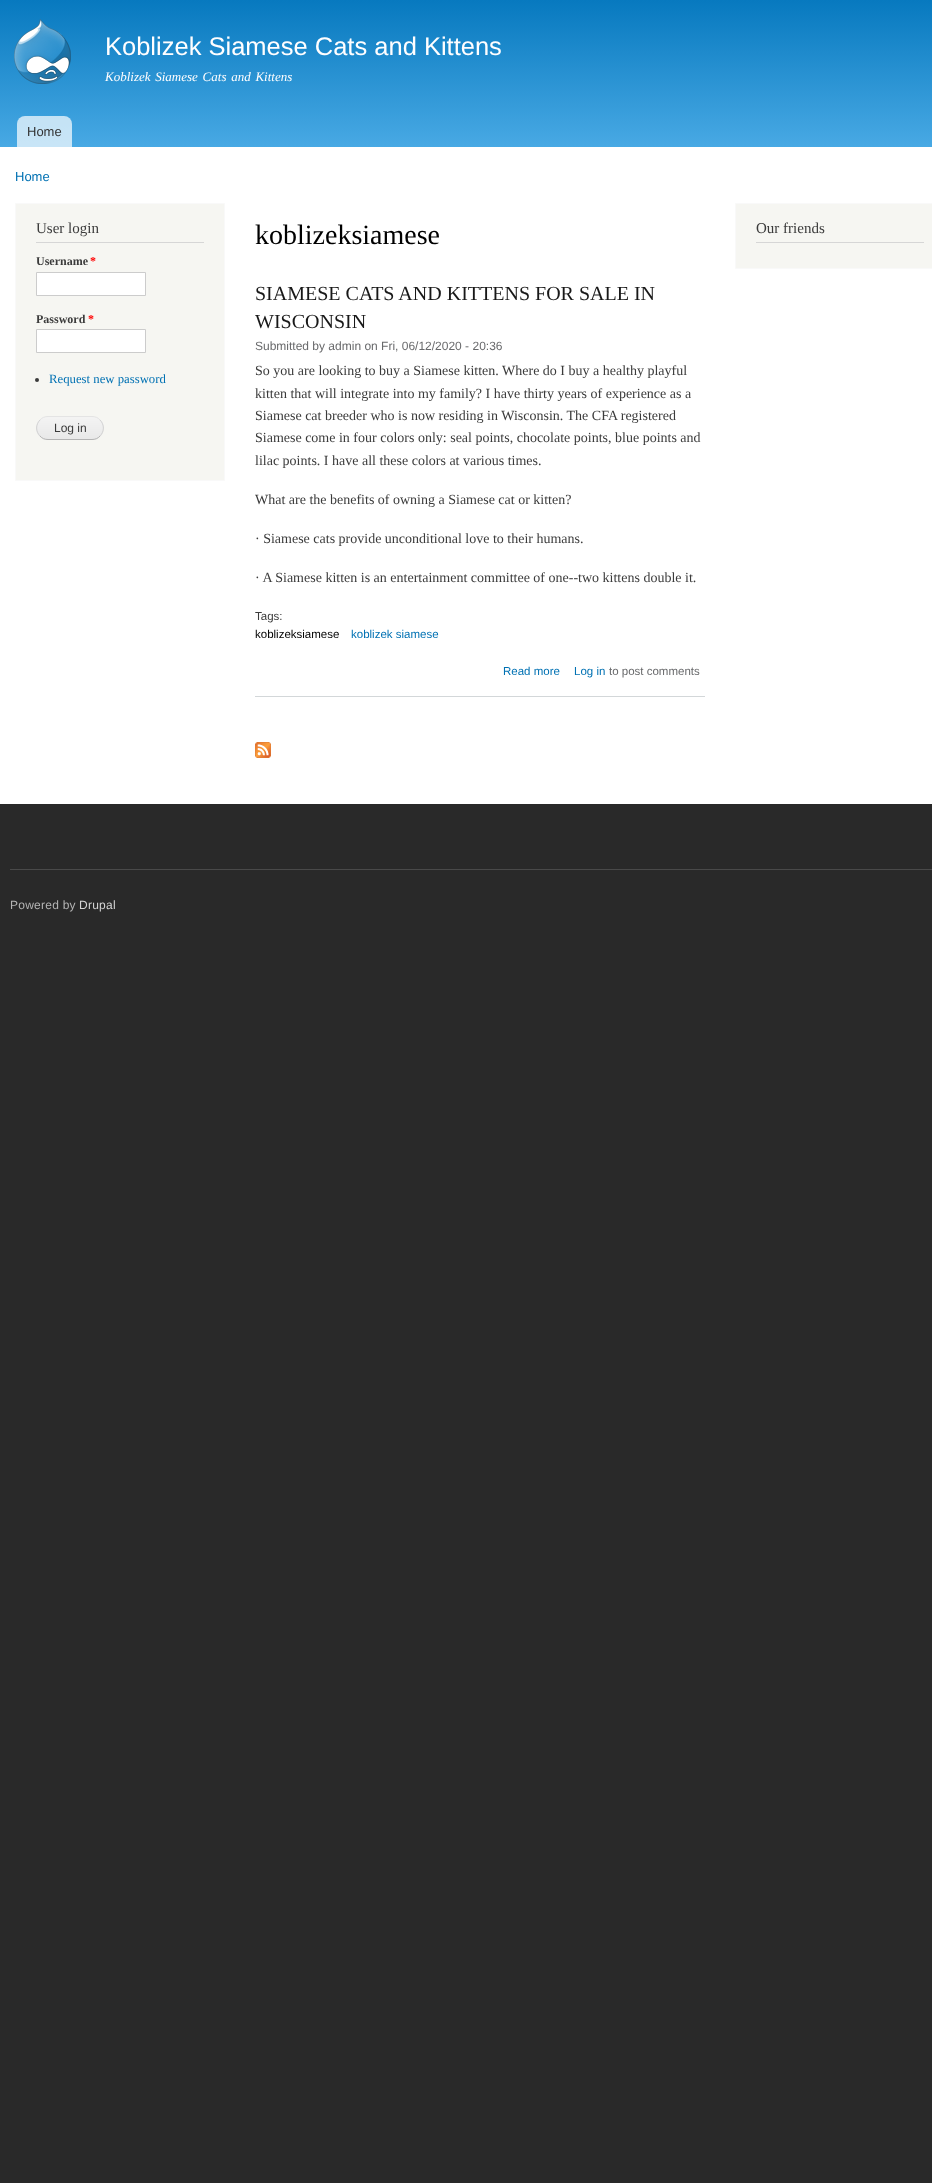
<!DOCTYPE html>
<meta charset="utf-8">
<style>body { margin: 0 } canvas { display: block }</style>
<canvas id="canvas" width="932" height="2183"></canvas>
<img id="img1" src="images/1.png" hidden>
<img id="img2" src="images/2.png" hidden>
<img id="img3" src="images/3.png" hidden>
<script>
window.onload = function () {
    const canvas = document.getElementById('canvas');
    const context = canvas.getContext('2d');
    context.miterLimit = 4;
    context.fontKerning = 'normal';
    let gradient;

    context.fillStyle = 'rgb(41, 41, 41)';
    context.fillRect(0, 0, 932, 2183);
    context.fillStyle = 'rgb(255, 255, 255)';
    context.fillRect(0, 147, 932, 657);
    gradient = context.createLinearGradient(480, 0, 480, 147);
    gradient.addColorStop(0, 'rgb(7, 121, 191)');
    gradient.addColorStop(1, 'rgb(72, 169, 228)');
    context.fillStyle = gradient;
    context.fillRect(0, 0, 932, 147);
    context.drawImage(document.getElementById('img1'), 14, 19, 57, 65);
    context.fillStyle = 'rgba(255, 255, 255, 0.7)';
    context.beginPath();
    context.roundRect(17, 116, 55, 31, [8, 8, 0, 0]);
    context.fill();
    context.fillStyle = 'rgb(246, 246, 242)';
    context.beginPath();
    context.rect(15.5, 203.5, 209, 277);
    context.fill();
    context.strokeStyle = 'rgb(249, 249, 249)';
    context.stroke();
    context.fillStyle = 'rgb(214, 214, 214)';
    context.fillRect(36, 242, 168, 1);
    context.fillStyle = 'rgb(255, 255, 255)';
    context.beginPath();
    context.rect(36.5, 272.5, 109, 23);
    context.fill();
    context.strokeStyle = 'rgb(204, 204, 204)';
    context.stroke();
    context.beginPath();
    context.rect(36.5, 329.5, 109, 23);
    context.fill();
    context.stroke();
    context.fillStyle = 'rgb(59, 59, 59)';
    context.beginPath();
    context.arc(37, 380, 2, 0, 2 * Math.PI);
    context.fill();
    context.drawImage(document.getElementById('img2'), 36, 417, 68, 23);
    context.beginPath();
    context.moveTo(40, 420);
    context.bezierCurveTo(42, 417.5, 45, 416.5, 48, 416.5);
    context.lineTo(92, 416.5);
    context.bezierCurveTo(95, 416.5, 98, 417.5, 100, 420);
    context.strokeStyle = 'rgb(228, 228, 228)';
    context.stroke();
    context.beginPath();
    context.moveTo(100, 420);
    context.bezierCurveTo(104.5, 424.5, 104.5, 431.5, 100, 436);
    context.strokeStyle = 'rgb(210, 210, 210)';
    context.stroke();
    context.beginPath();
    context.moveTo(100, 436);
    context.bezierCurveTo(98, 438.5, 95, 439.5, 92, 439.5);
    context.lineTo(48, 439.5);
    context.bezierCurveTo(45, 439.5, 42, 438.5, 40, 436);
    context.strokeStyle = 'rgb(180, 180, 180)';
    context.stroke();
    context.beginPath();
    context.moveTo(40, 436);
    context.bezierCurveTo(35.5, 431.5, 35.5, 424.5, 40, 420);
    context.strokeStyle = 'rgb(210, 210, 210)';
    context.stroke();
    context.fillStyle = 'rgb(211, 215, 217)';
    context.fillRect(255, 696, 450, 1);
    context.drawImage(document.getElementById('img3'), 255, 742, 16, 16);
    context.fillStyle = 'rgb(246, 246, 242)';
    context.beginPath();
    context.rect(735.5, 203.5, 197, 65);
    context.fill();
    context.strokeStyle = 'rgb(249, 249, 249)';
    context.stroke();
    context.fillStyle = 'rgb(214, 214, 214)';
    context.fillRect(756, 242, 168, 1);
    context.fillStyle = 'rgb(73, 73, 73)';
    context.fillRect(10, 869, 922, 1);
    context.font = '25.5px Liberation Sans';
    context.fillStyle = 'rgb(255, 254, 255)';
    context.fillText('Koblizek Siamese Cats and Kittens', 105, 55);
    context.wordSpacing = '1.5px';
    context.font = 'italic 13px Liberation Serif';
    context.fillText('Koblizek Siamese Cats and Kittens', 105, 81);
    context.wordSpacing = '0px';
    context.font = '13px Liberation Sans';
    context.fillStyle = 'rgb(51, 51, 51)';
    context.fillText('Home', 27, 136);
    context.fillStyle = 'rgb(0, 113, 179)';
    context.fillText('Home', 15, 181);
    context.font = '15px Liberation Serif';
    context.fillStyle = 'rgb(59, 59, 59)';
    context.fillText('User login', 36, 233);
    context.font = 'bold 12px Liberation Serif';
    context.fillText('Username', 36, 265);
    context.fillStyle = 'rgb(255, 0, 0)';
    context.fillText('*', 90, 265);
    context.fillStyle = 'rgb(59, 59, 59)';
    context.fillText('Password', 36, 323);
    context.fillStyle = 'rgb(255, 0, 0)';
    context.fillText('*', 88, 323);
    context.font = '12.75px Liberation Serif';
    context.fillStyle = 'rgb(0, 113, 179)';
    context.fillText('Request new password', 49, 383);
    context.font = '12px Liberation Sans';
    context.fillStyle = 'rgb(59, 59, 59)';
    context.fillText('Log in', 54, 432);
    context.font = '28px Liberation Serif';
    context.fillStyle = 'rgb(0, 0, 0)';
    context.fillText('koblizeksiamese', 255, 244);
    context.font = '20px Liberation Serif';
    context.fillStyle = 'rgb(24, 24, 24)';
    context.fillText('SIAMESE CATS AND KITTENS FOR SALE IN', 255, 300);
    context.fillText('WISCONSIN', 255, 328);
    context.font = '12px Liberation Sans';
    context.fillStyle = 'rgb(104, 105, 107)';
    context.fillText('Submitted by admin on Fri, 06/12/2020 - 20:36', 255, 350);
    context.font = '14px Liberation Serif';
    context.fillStyle = 'rgb(59, 59, 59)';
    context.fillText('So you are looking to buy a Siamese kitten. Where do I buy a healthy playful', 255, 375);
    context.fillText('kitten that will integrate into my family? I have thirty years of experience as a', 255, 398);
    context.fillText('Siamese cat breeder who is now residing in Wisconsin. The CFA registered', 255, 420);
    context.fillText('Siamese come in four colors only: seal points, chocolate points, blue points and', 255, 442);
    context.fillText('lilac points. I have all these colors at various times.', 255, 465);
    context.fillText('What are the benefits of owning a Siamese cat or kitten?', 255, 504);
    context.fillText('· Siamese cats provide unconditional love to their humans.', 255, 543);
    context.fillText('· A Siamese kitten is an entertainment committee of one--two kittens double it.', 255, 582);
    context.font = '11.5px Liberation Sans';
    context.fillText('Tags:', 255, 620);
    context.fillStyle = 'rgb(0, 0, 0)';
    context.fillText('koblizeksiamese', 255, 638);
    context.fillStyle = 'rgb(0, 113, 179)';
    context.fillText('koblizek siamese', 351, 638);
    context.fillText('Read more', 503, 675);
    context.fillText('Log in', 574, 675);
    context.fillStyle = 'rgb(104, 105, 107)';
    context.fillText('to post comments', 609, 675);
    context.font = '15px Liberation Serif';
    context.fillStyle = 'rgb(59, 59, 59)';
    context.fillText('Our friends', 756, 233);
    context.letterSpacing = '0.25px';
    context.font = '12px Liberation Sans';
    context.fillStyle = 'rgb(180, 180, 180)';
    context.fillText('Powered by', 10, 909);
    context.fillStyle = 'rgb(212, 212, 212)';
    context.fillText('Drupal', 79, 909);
};
</script>
